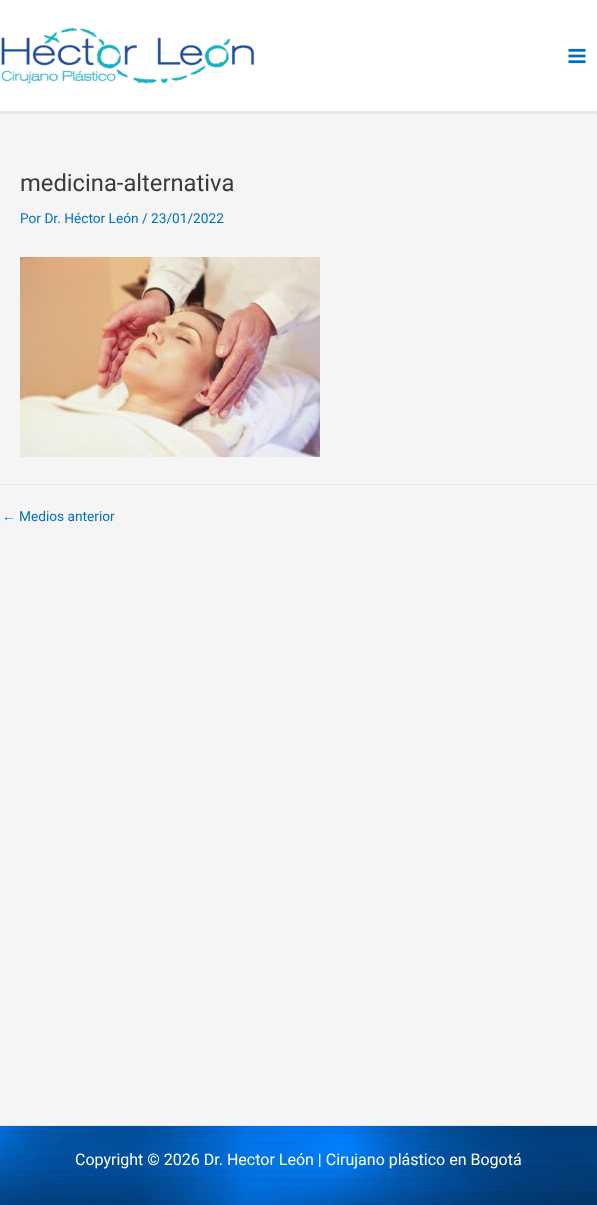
<!DOCTYPE html>
<meta charset="utf-8">
<style>body { margin: 0 } canvas { display: block }</style>
<canvas id="canvas" width="597" height="1205"></canvas>
<img id="img1" src="images/1.png" hidden>
<img id="img2" src="images/2.png" hidden>
<img id="img3" src="images/3.png" hidden>
<img id="img4" src="images/4.png" hidden>
<script>
window.onload = function () {
    const canvas = document.getElementById('canvas');
    const context = canvas.getContext('2d');
    context.miterLimit = 4;
    context.fontKerning = 'normal';

    context.fillStyle = 'rgb(245, 245, 245)';
    context.fillRect(0, 0, 597, 1205);
    context.fillStyle = 'rgb(255, 255, 255)';
    context.fillRect(0, 0, 597, 111);
    context.fillStyle = 'rgb(229, 229, 229)';
    context.fillRect(0, 111, 597, 3);
    context.drawImage(document.getElementById('img1'), 1, 27, 254, 60);
    context.drawImage(document.getElementById('img2'), 568, 48, 18, 16);
    context.drawImage(document.getElementById('img3'), 20, 257, 300, 200);
    context.fillRect(0, 484, 597, 1);
    context.drawImage(document.getElementById('img4'), 0, 1126, 597, 79);
    context.fillRect(0, 1125, 597, 1);
    context.font = '23.75px Roboto';
    context.fillStyle = 'rgb(58, 58, 58)';
    context.fillText('medicina-alternativa', 20, 191);
    context.font = '13.7px Roboto';
    context.fillStyle = 'rgb(1, 112, 185)';
    context.fillText('Por Dr. Héctor León / 23/01/2022', 20, 223);
    context.font = '13.7px Liberation Sans';
    context.fillText('←', 2, 521);
    context.font = '13.7px Roboto';
    context.fillText('Medios anterior', 19, 521);
    context.font = '16px Roboto';
    context.fillStyle = 'rgb(255, 255, 255)';
    context.fillText('Copyright © 2026 Dr. Hector León | Cirujano plástico en Bogotá', 75, 1165);
};
</script>
